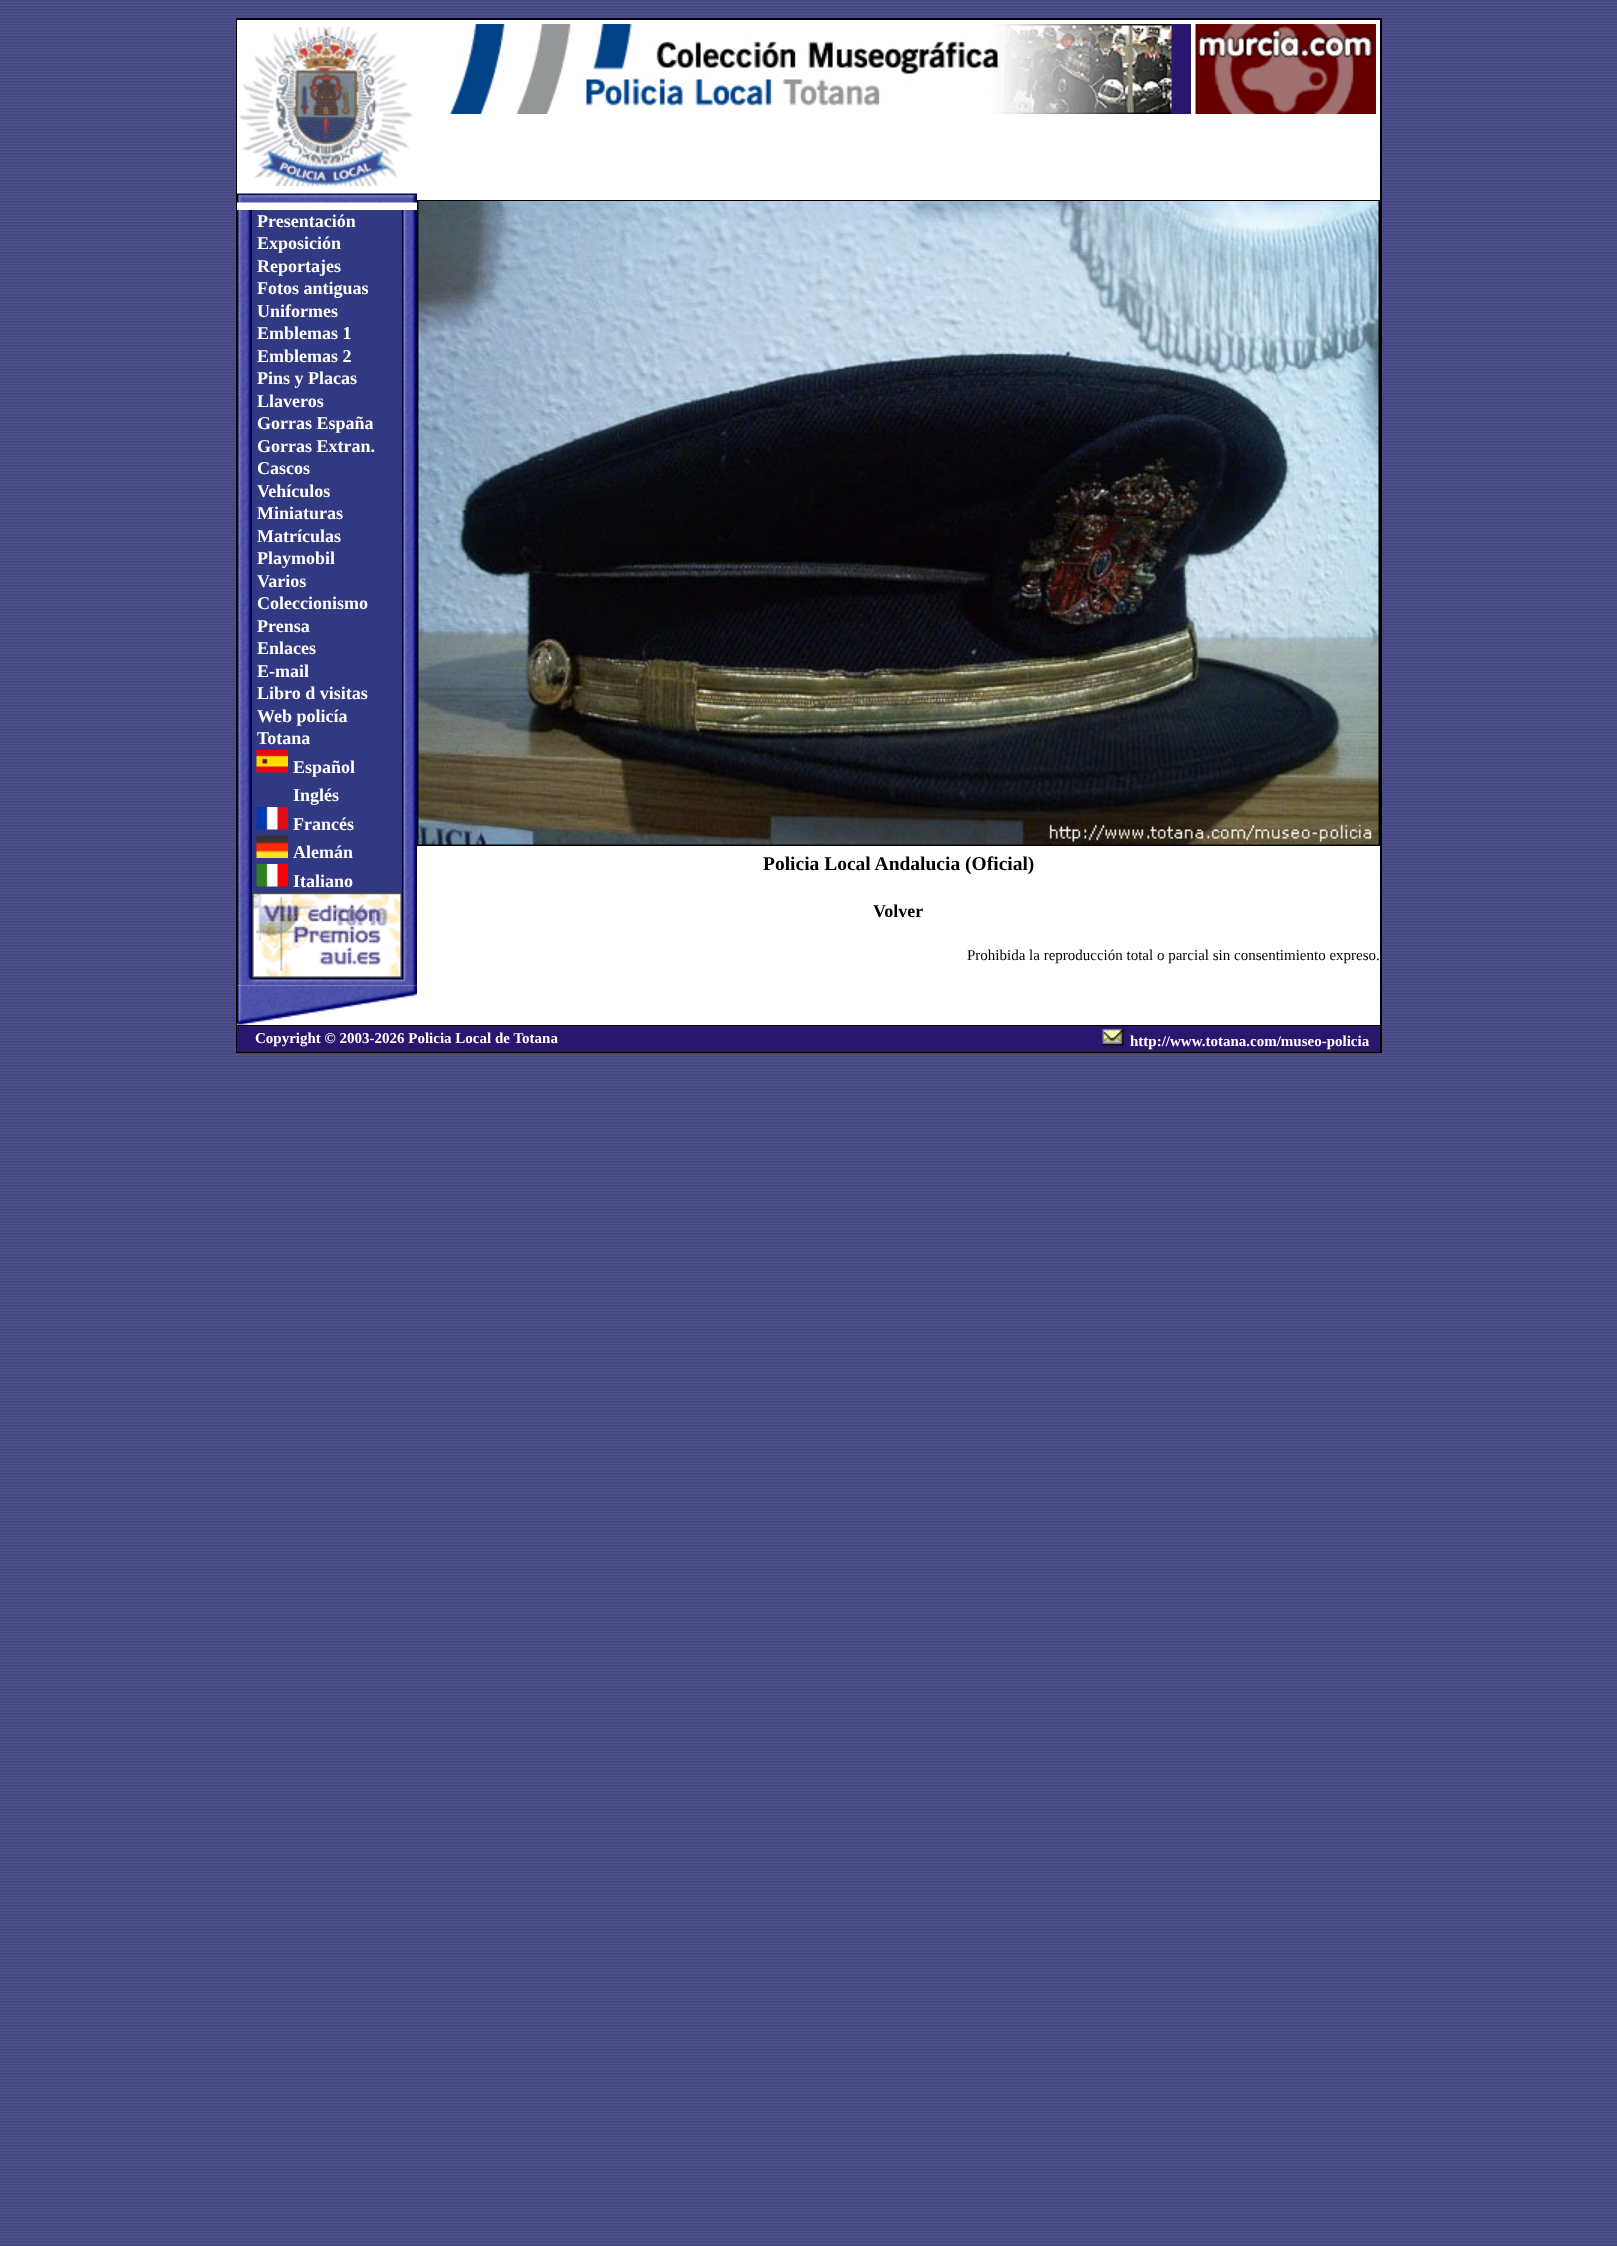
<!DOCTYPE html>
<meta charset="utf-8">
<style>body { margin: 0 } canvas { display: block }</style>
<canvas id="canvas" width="1617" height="2246"></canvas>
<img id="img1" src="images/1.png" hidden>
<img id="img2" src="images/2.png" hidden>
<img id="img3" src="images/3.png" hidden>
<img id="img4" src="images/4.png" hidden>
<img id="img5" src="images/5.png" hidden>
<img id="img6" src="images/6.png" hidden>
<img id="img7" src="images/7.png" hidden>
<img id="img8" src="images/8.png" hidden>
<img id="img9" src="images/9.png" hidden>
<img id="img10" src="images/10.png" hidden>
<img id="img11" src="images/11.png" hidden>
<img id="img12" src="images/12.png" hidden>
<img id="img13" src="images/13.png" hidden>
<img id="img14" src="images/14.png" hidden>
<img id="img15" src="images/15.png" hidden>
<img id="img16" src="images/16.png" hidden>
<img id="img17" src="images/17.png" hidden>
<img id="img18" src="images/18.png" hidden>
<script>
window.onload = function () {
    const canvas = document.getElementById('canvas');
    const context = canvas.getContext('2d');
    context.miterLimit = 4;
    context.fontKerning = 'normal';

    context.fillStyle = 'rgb(255, 255, 255)';
    context.fillRect(0, 0, 1617, 2246);
    context.drawImage(document.getElementById('img1'), 0, 0, 1617, 2246);
    context.fillStyle = 'rgb(0, 0, 0)';
    context.fillRect(236, 18, 1146, 1035);
    context.fillStyle = 'rgb(255, 255, 255)';
    context.fillRect(237, 20, 1143, 1005);
    context.drawImage(document.getElementById('img2'), 238, 27, 175, 159);
    context.drawImage(document.getElementById('img3'), 237, 193, 180, 10);
    context.drawImage(document.getElementById('img4'), 237, 210, 15, 768);
    context.drawImage(document.getElementById('img5'), 238, 576, 12, 38);
    context.fillStyle = 'rgb(49, 57, 130)';
    context.fillRect(252, 210, 150, 683);
    context.drawImage(document.getElementById('img6'), 256, 750, 32, 23);
    context.drawImage(document.getElementById('img7'), 256, 807, 32, 23);
    context.drawImage(document.getElementById('img8'), 256, 835, 32, 23);
    context.drawImage(document.getElementById('img9'), 256, 864, 32, 23);
    context.drawImage(document.getElementById('img10'), 252, 892, 150, 86);
    context.drawImage(document.getElementById('img11'), 402, 210, 15, 768);
    context.drawImage(document.getElementById('img12'), 403, 576, 13, 38);
    context.drawImage(document.getElementById('img13'), 237, 978, 180, 8);
    context.drawImage(document.getElementById('img14'), 237, 985, 180, 40);
    context.fillStyle = 'rgb(41, 22, 111)';
    context.fillRect(1171, 24, 20, 90);
    context.drawImage(document.getElementById('img15'), 422, 24, 750, 90);
    context.fillRect(1375, 24, 1, 90);
    context.drawImage(document.getElementById('img16'), 1195, 24, 181, 90);
    context.strokeStyle = 'rgb(0, 0, 0)';
    context.lineWidth = 2;
    context.strokeRect(418, 201, 961, 644);
    context.drawImage(document.getElementById('img17'), 418, 201, 961, 644);
    context.fillRect(237, 1026, 1143, 26);
    context.drawImage(document.getElementById('img18'), 1102, 1029, 22, 17);
    context.font = 'bold 18px Liberation Serif';
    context.fillStyle = 'rgb(255, 255, 255)';
    context.fillText('Presentación', 257, 227);
    context.fillText('Exposición', 257, 249);
    context.fillText('Reportajes', 257, 272);
    context.fillText('Fotos antiguas', 257, 294);
    context.fillText('Uniformes', 257, 317);
    context.fillText('Emblemas 1', 257, 339);
    context.fillText('Emblemas 2', 257, 362);
    context.fillText('Pins y Placas', 257, 384);
    context.fillText('Llaveros', 257, 407);
    context.fillText('Gorras España', 257, 429);
    context.fillText('Gorras Extran.', 257, 452);
    context.fillText('Cascos', 257, 474);
    context.fillText('Vehículos', 257, 497);
    context.fillText('Miniaturas', 257, 519);
    context.fillText('Matrículas', 257, 542);
    context.fillText('Playmobil', 257, 564);
    context.fillText('Varios', 257, 587);
    context.fillText('Coleccionismo', 257, 609);
    context.fillText('Prensa', 257, 632);
    context.fillText('Enlaces', 257, 654);
    context.fillText('E-mail', 257, 677);
    context.fillText('Libro d visitas', 257, 699);
    context.fillText('Web policía', 257, 722);
    context.fillText('Totana', 257, 744);
    context.fillText('Español', 293, 773);
    context.fillText('Inglés', 293, 801);
    context.fillText('Francés', 293, 830);
    context.fillText('Alemán', 293, 858);
    context.fillText('Italiano', 293, 887);
    context.font = 'bold 19.5px Liberation Serif';
    context.fillStyle = 'rgb(0, 0, 0)';
    context.fillText('Policia Local Andalucia (Oficial)', 763, 870);
    context.font = 'bold 18px Liberation Serif';
    context.fillText('Volver', 873, 917);
    context.font = '15px Liberation Serif';
    context.fillText('Prohibida la reproducción total o parcial sin consentimiento expreso.', 967, 960);
    context.font = 'bold 15px Liberation Serif';
    context.fillStyle = 'rgb(255, 255, 255)';
    context.fillText('Copyright © 2003-2026 Policia Local de Totana', 255, 1043);
    context.fillText('http://www.totana.com/museo-policia', 1130, 1046);
};
</script>
